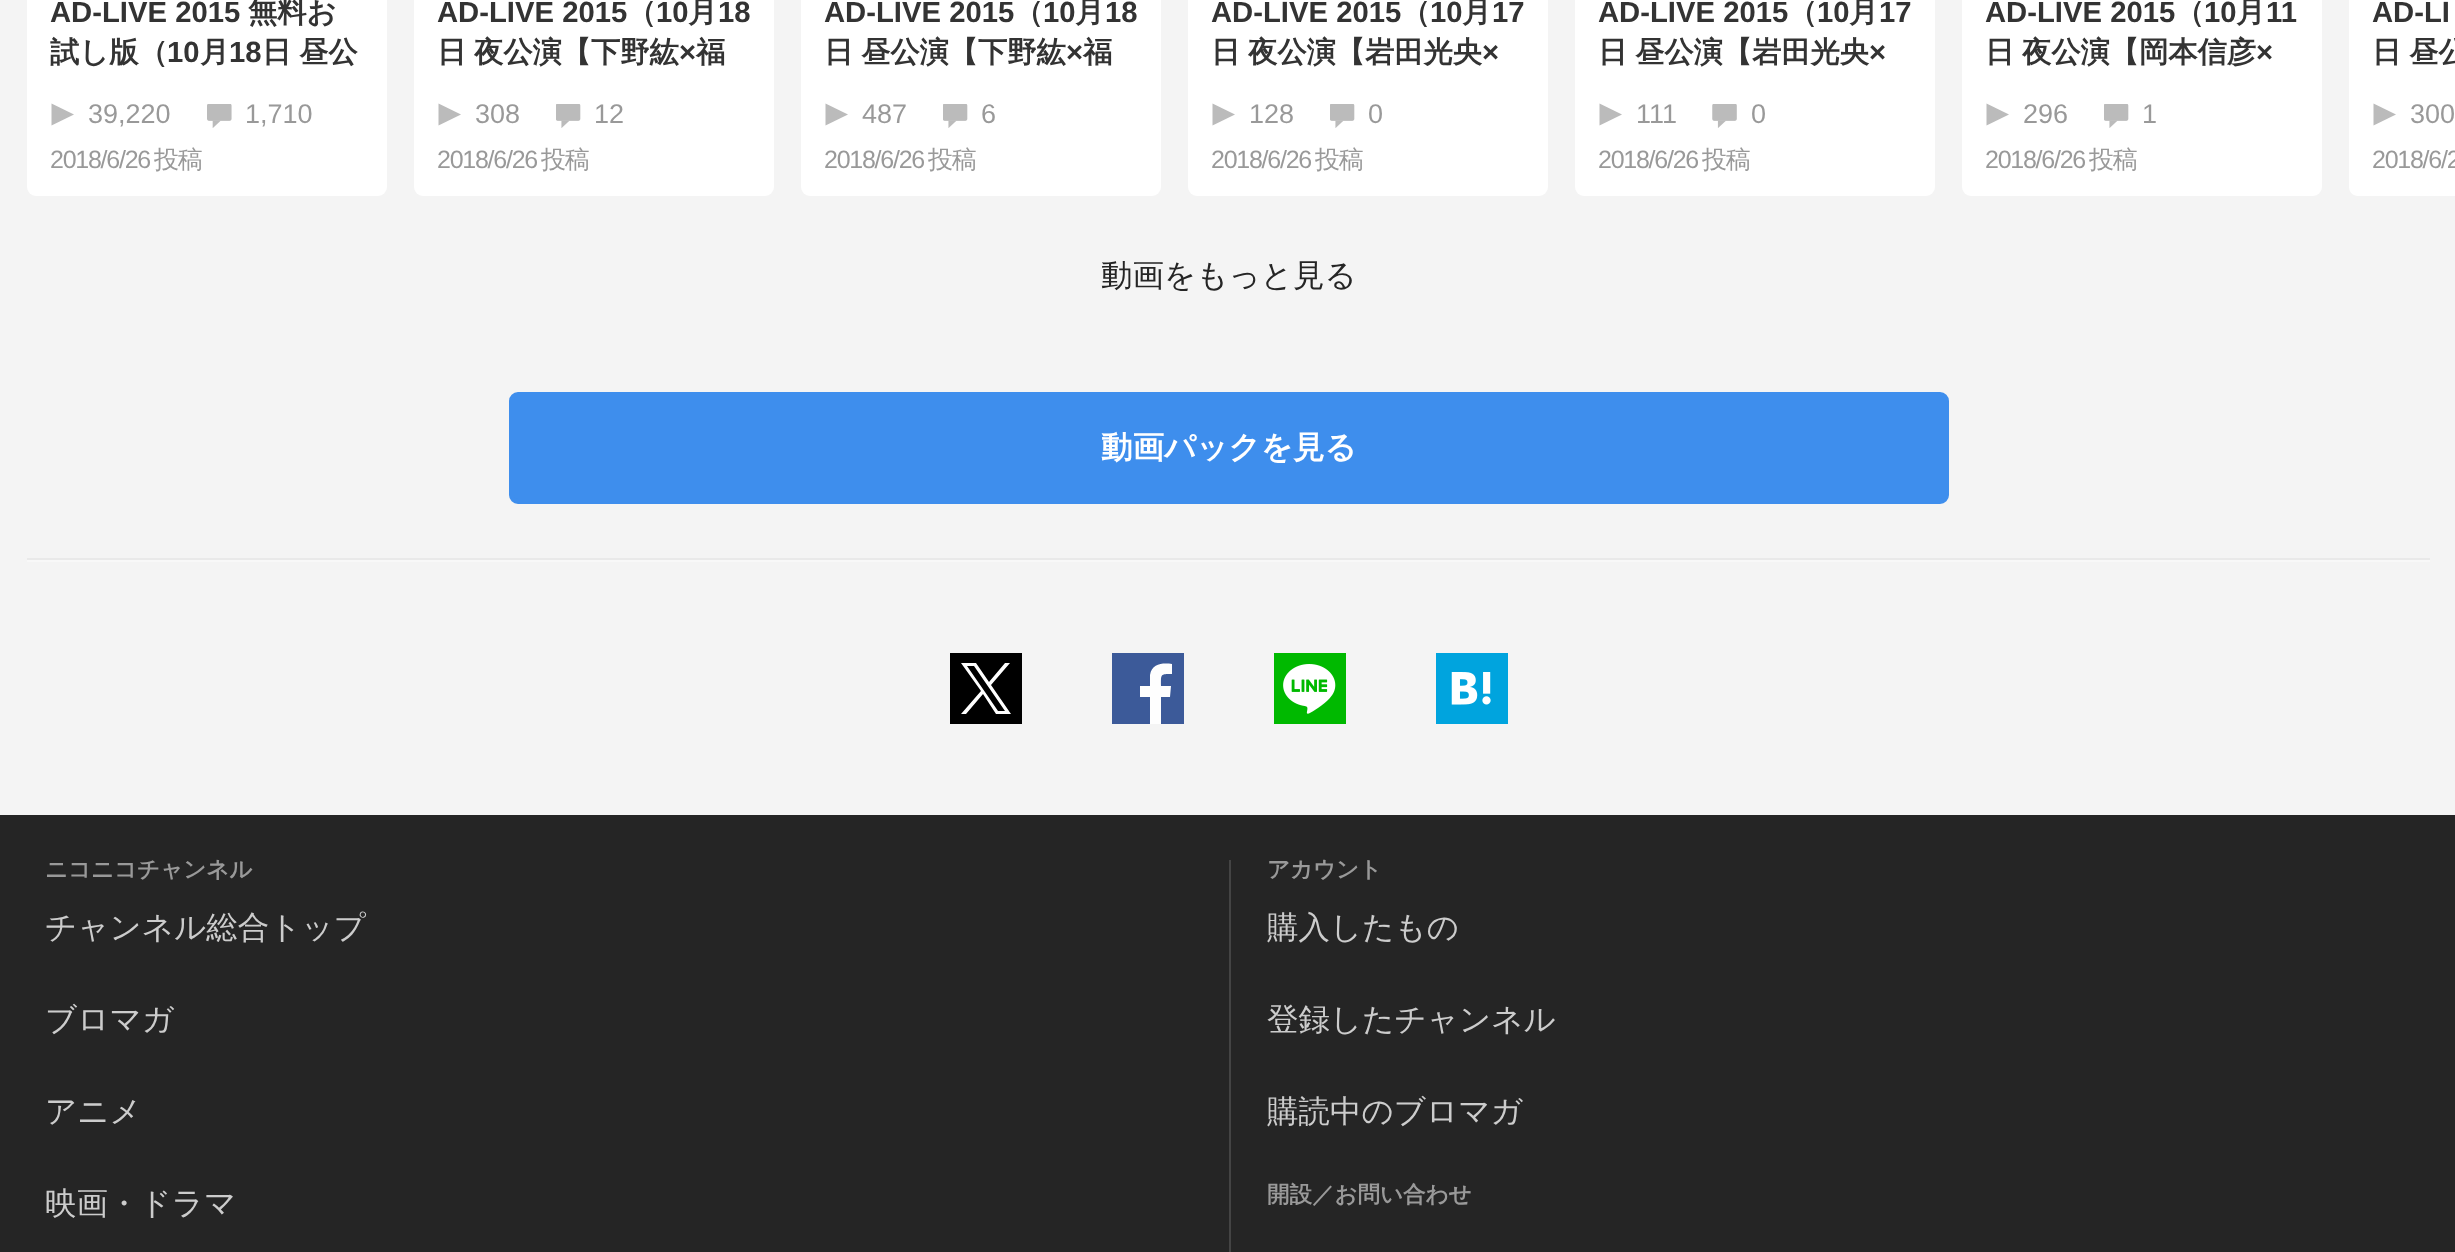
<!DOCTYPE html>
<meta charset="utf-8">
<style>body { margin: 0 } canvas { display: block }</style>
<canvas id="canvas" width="2455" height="1252"></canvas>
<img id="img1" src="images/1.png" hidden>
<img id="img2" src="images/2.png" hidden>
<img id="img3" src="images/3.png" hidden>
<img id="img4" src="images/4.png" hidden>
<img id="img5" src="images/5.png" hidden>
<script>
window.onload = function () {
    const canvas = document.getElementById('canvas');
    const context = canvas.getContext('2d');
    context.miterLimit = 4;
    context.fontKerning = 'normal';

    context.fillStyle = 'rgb(244, 244, 244)';
    context.fillRect(0, 0, 2455, 1252);
    context.fillStyle = 'rgb(255, 255, 255)';
    context.beginPath();
    context.roundRect(27, -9, 360, 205, 9);
    context.fill();
    context.fillStyle = 'rgb(187, 187, 187)';
    context.beginPath();
    context.moveTo(51.5, 103.5);
    context.lineTo(51.5, 125.5);
    context.lineTo(74, 114.5);
    context.closePath();
    context.fill('evenodd');
    context.drawImage(document.getElementById('img1'), 207, 104, 25, 24);
    context.fillStyle = 'rgb(255, 255, 255)';
    context.beginPath();
    context.roundRect(414, -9, 360, 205, 9);
    context.fill();
    context.fillStyle = 'rgb(187, 187, 187)';
    context.beginPath();
    context.moveTo(438.5, 103.5);
    context.lineTo(438.5, 125.5);
    context.lineTo(461, 114.5);
    context.closePath();
    context.fill('evenodd');
    context.drawImage(document.getElementById('img2'), 556, 104, 25, 24);
    context.fillStyle = 'rgb(255, 255, 255)';
    context.beginPath();
    context.roundRect(801, -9, 360, 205, 9);
    context.fill();
    context.fillStyle = 'rgb(187, 187, 187)';
    context.beginPath();
    context.moveTo(825.5, 103.5);
    context.lineTo(825.5, 125.5);
    context.lineTo(848, 114.5);
    context.closePath();
    context.fill('evenodd');
    context.drawImage(document.getElementById('img2'), 943, 104, 25, 24);
    context.fillStyle = 'rgb(255, 255, 255)';
    context.beginPath();
    context.roundRect(1188, -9, 360, 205, 9);
    context.fill();
    context.fillStyle = 'rgb(187, 187, 187)';
    context.beginPath();
    context.moveTo(1212.5, 103.5);
    context.lineTo(1212.5, 125.5);
    context.lineTo(1235, 114.5);
    context.closePath();
    context.fill('evenodd');
    context.drawImage(document.getElementById('img2'), 1330, 104, 25, 24);
    context.fillStyle = 'rgb(255, 255, 255)';
    context.beginPath();
    context.roundRect(1575, -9, 360, 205, 9);
    context.fill();
    context.fillStyle = 'rgb(187, 187, 187)';
    context.beginPath();
    context.moveTo(1599.5, 103.5);
    context.lineTo(1599.5, 125.5);
    context.lineTo(1622, 114.5);
    context.closePath();
    context.fill('evenodd');
    context.drawImage(document.getElementById('img3'), 1712, 104, 25, 24);
    context.fillStyle = 'rgb(255, 255, 255)';
    context.beginPath();
    context.roundRect(1962, -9, 360, 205, 9);
    context.fill();
    context.fillStyle = 'rgb(187, 187, 187)';
    context.beginPath();
    context.moveTo(1986.5, 103.5);
    context.lineTo(1986.5, 125.5);
    context.lineTo(2009, 114.5);
    context.closePath();
    context.fill('evenodd');
    context.drawImage(document.getElementById('img2'), 2104, 104, 25, 24);
    context.fillStyle = 'rgb(255, 255, 255)';
    context.beginPath();
    context.moveTo(2358, -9);
    context.lineTo(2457, -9);
    context.lineTo(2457, 196);
    context.lineTo(2358, 196);
    context.bezierCurveTo(2353, 196, 2349, 192, 2349, 187);
    context.lineTo(2349, 0);
    context.bezierCurveTo(2349, -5, 2353, -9, 2358, -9);
    context.closePath();
    context.fill();
    context.fillStyle = 'rgb(187, 187, 187)';
    context.beginPath();
    context.moveTo(2373.5, 103.5);
    context.lineTo(2373.5, 125.5);
    context.lineTo(2396, 114.5);
    context.closePath();
    context.fill('evenodd');
    context.fillStyle = 'rgb(62, 142, 237)';
    context.beginPath();
    context.roundRect(511.5, 394.5, 1435, 107, 6.5);
    context.fill();
    context.strokeStyle = 'rgb(62, 142, 237)';
    context.lineWidth = 5;
    context.stroke();
    context.fillStyle = 'rgb(233, 233, 233)';
    context.fillRect(27, 558, 2403, 2);
    context.fillStyle = 'rgb(248, 248, 248)';
    context.fillRect(27, 560, 2403, 2);
    context.fillStyle = 'rgb(0, 0, 0)';
    context.fillRect(950, 653, 72, 71);
    context.fillStyle = 'rgb(255, 255, 255)';
    context.beginPath();
    context.moveTo(991, 685);
    context.lineTo(1010, 663);
    context.lineTo(1005, 663);
    context.lineTo(989, 682);
    context.lineTo(976, 663);
    context.lineTo(961, 663);
    context.lineTo(981, 691);
    context.lineTo(961, 714);
    context.lineTo(966, 714);
    context.lineTo(983, 694);
    context.lineTo(996, 714);
    context.lineTo(1011, 714);
    context.closePath();
    context.moveTo(985, 692);
    context.lineTo(967, 666);
    context.lineTo(974, 666);
    context.lineTo(1005, 711);
    context.lineTo(998, 711);
    context.closePath();
    context.fill();
    context.fillStyle = 'rgb(60, 90, 153)';
    context.fillRect(1112, 653, 72, 71);
    context.fillStyle = 'rgb(254, 254, 254)';
    context.beginPath();
    context.moveTo(1161, 724);
    context.lineTo(1161, 697);
    context.lineTo(1170, 697);
    context.lineTo(1171, 686);
    context.lineTo(1161, 686);
    context.bezierCurveTo(1161, 674, 1160, 674, 1172, 674);
    context.lineTo(1172, 664);
    context.bezierCurveTo(1163, 663, 1152, 663, 1150, 675);
    context.lineTo(1150, 686);
    context.lineTo(1140, 686);
    context.lineTo(1140, 697);
    context.lineTo(1150, 697);
    context.lineTo(1150, 724);
    context.closePath();
    context.fill('evenodd');
    context.drawImage(document.getElementById('img4'), 1274, 653, 72, 71);
    context.drawImage(document.getElementById('img5'), 1436, 653, 72, 71);
    context.fillStyle = 'rgb(37, 37, 37)';
    context.fillRect(0, 815, 2455, 437);
    context.fillStyle = 'rgb(68, 68, 68)';
    context.fillRect(1229, 860, 2, 392);
    context.font = 'bold 29.25px Liberation Sans';
    context.fillStyle = 'rgb(51, 51, 51)';
    context.fillText('AD-LIVE 2015', 50, 22);
    context.font = 'bold 29.25px WenQuanYi Zen Hei';
    context.fillText('無料お', 248, 22);
    context.fillText('試し版（', 50, 62);
    context.font = 'bold 29.25px Liberation Sans';
    context.fillText('10', 167, 62);
    context.font = 'bold 29.25px WenQuanYi Zen Hei';
    context.fillText('月', 200, 62);
    context.font = 'bold 29.25px Liberation Sans';
    context.fillText('18', 229, 62);
    context.wordSpacing = '-1px';
    context.font = 'bold 29.25px WenQuanYi Zen Hei';
    context.fillText('日 昼公', 262, 62);
    context.wordSpacing = '0px';
    context.font = '27px Liberation Sans';
    context.fillStyle = 'rgb(153, 153, 153)';
    context.fillText('39,220', 88, 123);
    context.fillText('1,710', 245, 123);
    context.letterSpacing = '-1.25px';
    context.font = '25px Liberation Sans';
    context.fillText('2018/6/26', 50, 168);
    context.font = '500 25px WenQuanYi Zen Hei';
    context.fillText('投稿', 154, 168);
    context.letterSpacing = '0px';
    context.font = 'bold 29.25px Liberation Sans';
    context.fillStyle = 'rgb(51, 51, 51)';
    context.fillText('AD-LIVE 2015', 437, 22);
    context.font = 'bold 29.25px WenQuanYi Zen Hei';
    context.fillText('（', 627, 22);
    context.font = 'bold 29.25px Liberation Sans';
    context.fillText('10', 656, 22);
    context.font = 'bold 29.25px WenQuanYi Zen Hei';
    context.fillText('月', 688, 22);
    context.font = 'bold 29.25px Liberation Sans';
    context.fillText('18', 718, 22);
    context.wordSpacing = '-1px';
    context.font = 'bold 29.25px WenQuanYi Zen Hei';
    context.fillText('日 夜公演【下野紘', 437, 62);
    context.wordSpacing = '0px';
    context.font = 'bold 29.25px Liberation Sans';
    context.fillText('×', 679, 62);
    context.font = 'bold 29.25px WenQuanYi Zen Hei';
    context.fillText('福', 696, 62);
    context.font = '27px Liberation Sans';
    context.fillStyle = 'rgb(153, 153, 153)';
    context.fillText('308', 475, 123);
    context.fillText('12', 594, 123);
    context.letterSpacing = '-1.25px';
    context.font = '25px Liberation Sans';
    context.fillText('2018/6/26', 437, 168);
    context.font = '500 25px WenQuanYi Zen Hei';
    context.fillText('投稿', 541, 168);
    context.letterSpacing = '0px';
    context.font = 'bold 29.25px Liberation Sans';
    context.fillStyle = 'rgb(51, 51, 51)';
    context.fillText('AD-LIVE 2015', 824, 22);
    context.font = 'bold 29.25px WenQuanYi Zen Hei';
    context.fillText('（', 1014, 22);
    context.font = 'bold 29.25px Liberation Sans';
    context.fillText('10', 1043, 22);
    context.font = 'bold 29.25px WenQuanYi Zen Hei';
    context.fillText('月', 1075, 22);
    context.font = 'bold 29.25px Liberation Sans';
    context.fillText('18', 1105, 22);
    context.wordSpacing = '-1px';
    context.font = 'bold 29.25px WenQuanYi Zen Hei';
    context.fillText('日 昼公演【下野紘', 824, 62);
    context.wordSpacing = '0px';
    context.font = 'bold 29.25px Liberation Sans';
    context.fillText('×', 1066, 62);
    context.font = 'bold 29.25px WenQuanYi Zen Hei';
    context.fillText('福', 1083, 62);
    context.font = '27px Liberation Sans';
    context.fillStyle = 'rgb(153, 153, 153)';
    context.fillText('487', 862, 123);
    context.fillText('6', 981, 123);
    context.letterSpacing = '-1.25px';
    context.font = '25px Liberation Sans';
    context.fillText('2018/6/26', 824, 168);
    context.font = '500 25px WenQuanYi Zen Hei';
    context.fillText('投稿', 928, 168);
    context.letterSpacing = '0px';
    context.font = 'bold 29.25px Liberation Sans';
    context.fillStyle = 'rgb(51, 51, 51)';
    context.fillText('AD-LIVE 2015', 1211, 22);
    context.font = 'bold 29.25px WenQuanYi Zen Hei';
    context.fillText('（', 1401, 22);
    context.font = 'bold 29.25px Liberation Sans';
    context.fillText('10', 1430, 22);
    context.font = 'bold 29.25px WenQuanYi Zen Hei';
    context.fillText('月', 1462, 22);
    context.font = 'bold 29.25px Liberation Sans';
    context.fillText('17', 1492, 22);
    context.wordSpacing = '-1px';
    context.font = 'bold 29.25px WenQuanYi Zen Hei';
    context.fillText('日 夜公演【岩田光央', 1211, 62);
    context.wordSpacing = '0px';
    context.font = 'bold 29.25px Liberation Sans';
    context.fillText('×', 1482, 62);
    context.font = '27px Liberation Sans';
    context.fillStyle = 'rgb(153, 153, 153)';
    context.fillText('128', 1249, 123);
    context.fillText('0', 1368, 123);
    context.letterSpacing = '-1.25px';
    context.font = '25px Liberation Sans';
    context.fillText('2018/6/26', 1211, 168);
    context.font = '500 25px WenQuanYi Zen Hei';
    context.fillText('投稿', 1315, 168);
    context.letterSpacing = '0px';
    context.font = 'bold 29.25px Liberation Sans';
    context.fillStyle = 'rgb(51, 51, 51)';
    context.fillText('AD-LIVE 2015', 1598, 22);
    context.font = 'bold 29.25px WenQuanYi Zen Hei';
    context.fillText('（', 1788, 22);
    context.font = 'bold 29.25px Liberation Sans';
    context.fillText('10', 1817, 22);
    context.font = 'bold 29.25px WenQuanYi Zen Hei';
    context.fillText('月', 1849, 22);
    context.font = 'bold 29.25px Liberation Sans';
    context.fillText('17', 1879, 22);
    context.wordSpacing = '-1px';
    context.font = 'bold 29.25px WenQuanYi Zen Hei';
    context.fillText('日 昼公演【岩田光央', 1598, 62);
    context.wordSpacing = '0px';
    context.font = 'bold 29.25px Liberation Sans';
    context.fillText('×', 1869, 62);
    context.font = '27px Liberation Sans';
    context.fillStyle = 'rgb(153, 153, 153)';
    context.fillText('111', 1636, 123);
    context.fillText('0', 1751, 123);
    context.letterSpacing = '-1.25px';
    context.font = '25px Liberation Sans';
    context.fillText('2018/6/26', 1598, 168);
    context.font = '500 25px WenQuanYi Zen Hei';
    context.fillText('投稿', 1702, 168);
    context.letterSpacing = '0px';
    context.font = 'bold 29.25px Liberation Sans';
    context.fillStyle = 'rgb(51, 51, 51)';
    context.fillText('AD-LIVE 2015', 1985, 22);
    context.font = 'bold 29.25px WenQuanYi Zen Hei';
    context.fillText('（', 2175, 22);
    context.font = 'bold 29.25px Liberation Sans';
    context.fillText('10', 2204, 22);
    context.font = 'bold 29.25px WenQuanYi Zen Hei';
    context.fillText('月', 2236, 22);
    context.font = 'bold 29.25px Liberation Sans';
    context.fillText('11', 2266, 22);
    context.wordSpacing = '-1px';
    context.font = 'bold 29.25px WenQuanYi Zen Hei';
    context.fillText('日 夜公演【岡本信彦', 1985, 62);
    context.wordSpacing = '0px';
    context.font = 'bold 29.25px Liberation Sans';
    context.fillText('×', 2256, 62);
    context.font = '27px Liberation Sans';
    context.fillStyle = 'rgb(153, 153, 153)';
    context.fillText('296', 2023, 123);
    context.fillText('1', 2142, 123);
    context.letterSpacing = '-1.25px';
    context.font = '25px Liberation Sans';
    context.fillText('2018/6/26', 1985, 168);
    context.font = '500 25px WenQuanYi Zen Hei';
    context.fillText('投稿', 2089, 168);
    context.letterSpacing = '0px';
    context.font = 'bold 29.25px Liberation Sans';
    context.fillStyle = 'rgb(51, 51, 51)';
    context.fillText('AD-LI', 2372, 22);
    context.wordSpacing = '-1px';
    context.font = 'bold 29.25px WenQuanYi Zen Hei';
    context.fillText('日 昼公', 2372, 62);
    context.wordSpacing = '0px';
    context.font = '27px Liberation Sans';
    context.fillStyle = 'rgb(153, 153, 153)';
    context.fillText('300', 2410, 123);
    context.letterSpacing = '-1.25px';
    context.font = '25px Liberation Sans';
    context.fillText('2018/6/2', 2372, 168);
    context.letterSpacing = '0px';
    context.font = '500 31.5px WenQuanYi Zen Hei';
    context.fillStyle = 'rgb(37, 37, 37)';
    context.fillText('動画をもっと見る', 1101, 286);
    context.font = 'bold 31.5px WenQuanYi Zen Hei';
    context.fillStyle = 'rgb(255, 255, 255)';
    context.fillText('動画パックを見る', 1101, 458);
    context.font = 'bold 22.5px WenQuanYi Zen Hei';
    context.fillStyle = 'rgb(153, 153, 153)';
    context.fillText('ニコニコチャンネル', 45, 877);
    context.font = '500 31.5px WenQuanYi Zen Hei';
    context.fillStyle = 'rgb(204, 204, 204)';
    context.fillText('チャンネル総合トップ', 45, 938);
    context.fillText('ブロマガ', 45, 1030);
    context.fillText('アニメ', 45, 1122);
    context.fillText('映画・ドラマ', 45, 1214);
    context.font = 'bold 22.5px WenQuanYi Zen Hei';
    context.fillStyle = 'rgb(153, 153, 153)';
    context.fillText('アカウント', 1267, 877);
    context.font = '500 31.5px WenQuanYi Zen Hei';
    context.fillStyle = 'rgb(204, 204, 204)';
    context.fillText('購入したもの', 1267, 938);
    context.fillText('登録したチャンネル', 1267, 1030);
    context.fillText('購読中のブロマガ', 1267, 1122);
    context.font = 'bold 22.5px WenQuanYi Zen Hei';
    context.fillStyle = 'rgb(153, 153, 153)';
    context.fillText('開設／お問い合わせ', 1267, 1202);
};
</script>
